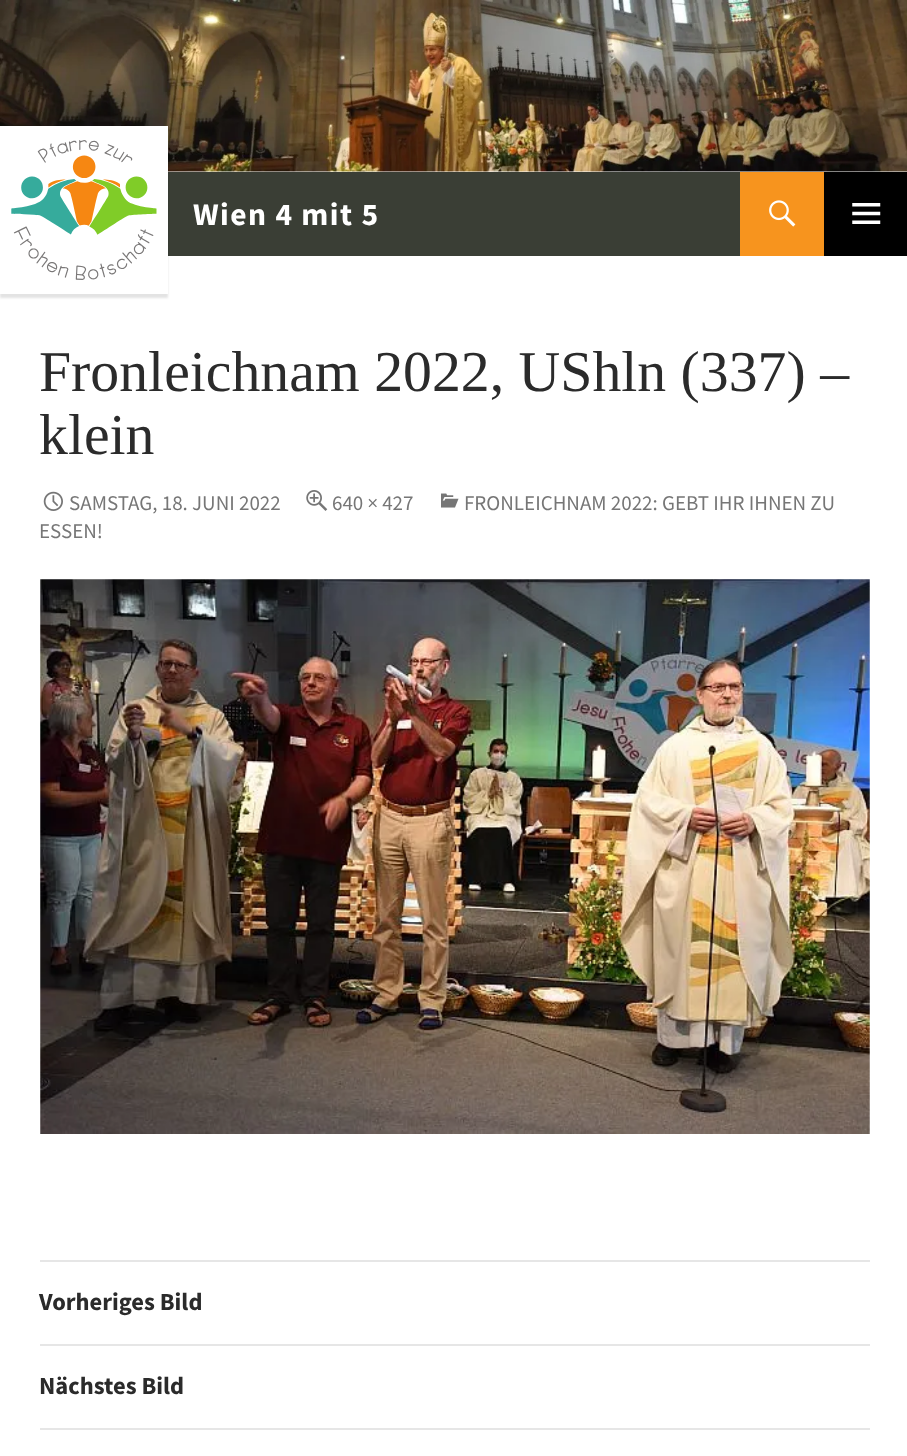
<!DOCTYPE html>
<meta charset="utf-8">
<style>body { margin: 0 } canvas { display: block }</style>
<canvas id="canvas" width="907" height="1456"></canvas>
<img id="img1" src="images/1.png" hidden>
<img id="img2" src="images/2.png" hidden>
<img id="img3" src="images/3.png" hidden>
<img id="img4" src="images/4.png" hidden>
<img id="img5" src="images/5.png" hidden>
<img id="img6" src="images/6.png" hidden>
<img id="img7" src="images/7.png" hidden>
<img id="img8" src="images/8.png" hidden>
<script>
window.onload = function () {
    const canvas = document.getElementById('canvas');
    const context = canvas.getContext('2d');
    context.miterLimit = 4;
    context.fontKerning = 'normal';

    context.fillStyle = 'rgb(255, 255, 255)';
    context.fillRect(0, 0, 907, 1456);
    context.drawImage(document.getElementById('img1'), 0, 0, 907, 172);
    context.fillStyle = 'rgb(58, 62, 53)';
    context.fillRect(168, 172, 572, 84);
    context.fillStyle = 'rgba(0, 0, 0, 0.11)';
    context.filter = 'blur(1px)';
    context.beginPath();
    context.rect(0, 130, 168, 168);
    context.fill();
    context.filter = 'none';
    context.fillStyle = 'rgb(255, 255, 255)';
    context.fillRect(0, 126, 168, 168);
    context.drawImage(document.getElementById('img2'), 11, 140, 146, 140);
    context.fillStyle = 'rgb(247, 148, 30)';
    context.fillRect(740, 172, 84, 84);
    context.drawImage(document.getElementById('img3'), 769, 200, 27, 27);
    context.fillStyle = 'rgb(0, 0, 0)';
    context.fillRect(824, 172, 83, 84);
    context.drawImage(document.getElementById('img4'), 852, 203, 29, 21);
    context.drawImage(document.getElementById('img5'), 441, 493, 18, 15);
    context.drawImage(document.getElementById('img6'), 43, 491, 20, 20);
    context.drawImage(document.getElementById('img7'), 306, 490, 22, 21);
    context.drawImage(document.getElementById('img8'), 40, 579, 830, 555);
    context.fillStyle = 'rgb(230, 230, 230)';
    context.fillRect(40, 1260, 830, 2);
    context.fillRect(40, 1344, 830, 2);
    context.fillRect(40, 1428, 830, 2);
    context.letterSpacing = '1.5px';
    context.font = 'bold 31.5px Source Sans Pro';
    context.fillStyle = 'rgb(255, 255, 255)';
    context.fillText('Wien 4 mit 5', 193, 225);
    context.letterSpacing = '0px';
    context.font = '57.75px Liberation Serif';
    context.fillStyle = 'rgb(43, 43, 43)';
    context.fillText('Fronleichnam 2022, UShln (337) –', 39, 391);
    context.fillText('klein', 39, 454);
    context.font = '21px Source Sans Pro';
    context.fillStyle = 'rgb(118, 118, 118)';
    context.fillText('FRONLEICHNAM 2022: GEBT IHR IHNEN ZU', 464, 510);
    context.fillText('ESSEN!', 39, 538);
    context.fillText('SAMSTAG, 18. JUNI 2022', 69, 510);
    context.fillText('640 × 427', 332, 510);
    context.font = 'bold 24.5px Source Sans Pro';
    context.fillStyle = 'rgb(43, 43, 43)';
    context.fillText('Vorheriges Bild', 39, 1310);
    context.fillText('Nächstes Bild', 39, 1394);
};
</script>
